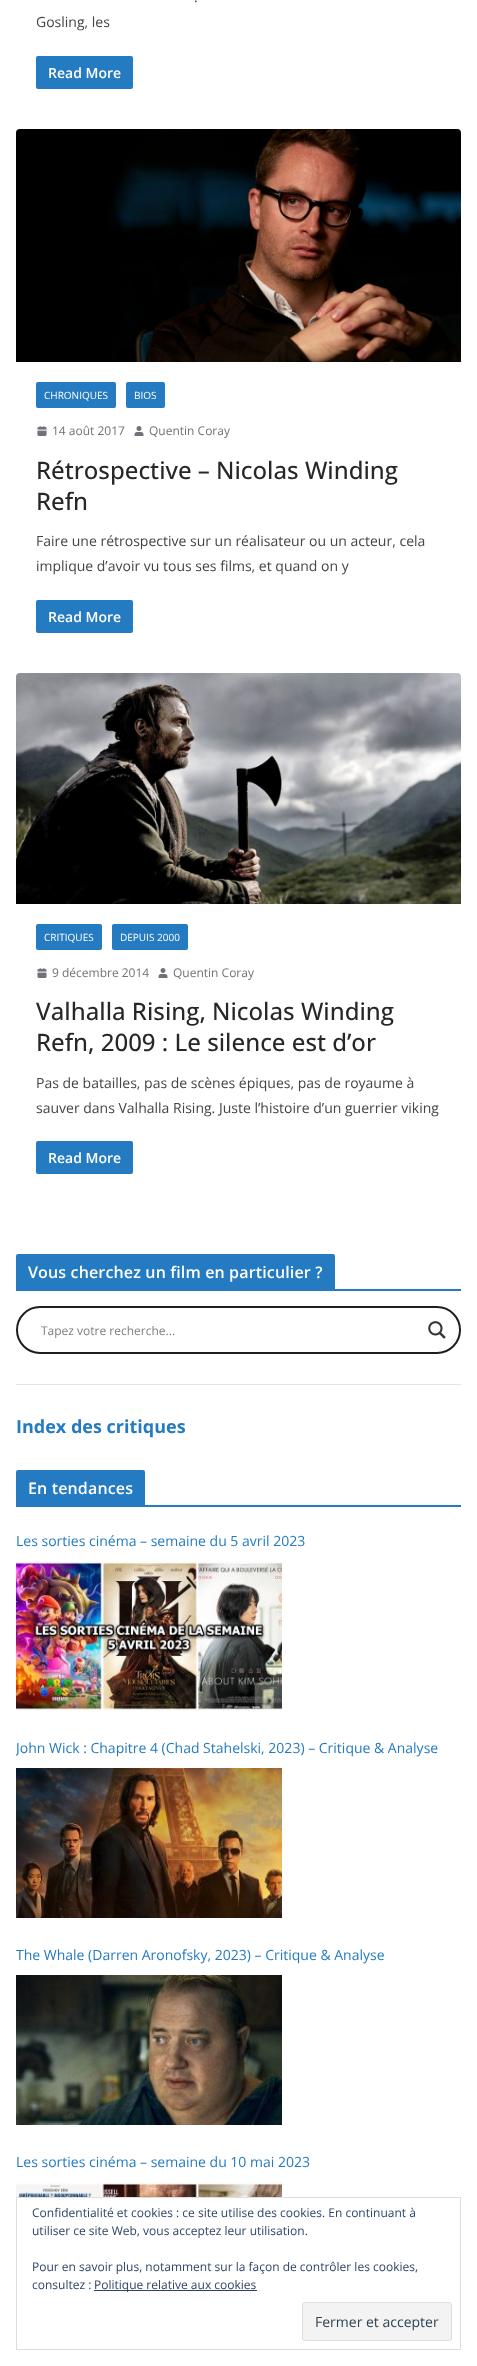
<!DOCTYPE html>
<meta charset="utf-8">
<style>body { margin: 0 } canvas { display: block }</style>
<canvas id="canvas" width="477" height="2366"></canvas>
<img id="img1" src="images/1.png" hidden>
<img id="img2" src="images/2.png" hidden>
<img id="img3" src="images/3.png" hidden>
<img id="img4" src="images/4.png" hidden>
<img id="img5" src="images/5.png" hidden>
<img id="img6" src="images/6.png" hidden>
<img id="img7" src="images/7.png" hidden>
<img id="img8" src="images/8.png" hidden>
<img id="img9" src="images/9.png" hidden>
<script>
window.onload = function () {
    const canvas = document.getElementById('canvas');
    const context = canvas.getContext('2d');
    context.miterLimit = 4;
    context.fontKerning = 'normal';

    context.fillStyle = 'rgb(255, 255, 255)';
    context.fillRect(0, 0, 477, 2366);
    context.fillStyle = 'rgb(37, 123, 193)';
    context.beginPath();
    context.roundRect(36, 56, 97, 33, 2);
    context.fill();
    context.drawImage(document.getElementById('img1'), 16, 129, 445, 233);
    context.beginPath();
    context.roundRect(36, 382, 80, 26, 2);
    context.fill();
    context.beginPath();
    context.roundRect(126, 382, 39, 26, 2);
    context.fill();
    context.drawImage(document.getElementById('img2'), 37, 426, 10, 10);
    context.drawImage(document.getElementById('img3'), 134, 426, 10, 10);
    context.beginPath();
    context.roundRect(36, 600, 97, 33, 2);
    context.fill();
    context.drawImage(document.getElementById('img4'), 16, 673, 445, 231);
    context.beginPath();
    context.roundRect(36, 924, 66, 26, 2);
    context.fill();
    context.beginPath();
    context.roundRect(112, 924, 76, 26, 2);
    context.fill();
    context.drawImage(document.getElementById('img2'), 37, 968, 10, 10);
    context.drawImage(document.getElementById('img3'), 158, 968, 10, 10);
    context.beginPath();
    context.roundRect(36, 1141, 97, 33, 2);
    context.fill();
    context.fillRect(16, 1289, 445, 2);
    context.beginPath();
    context.roundRect(16, 1254, 319, 35, [2, 2, 0, 0]);
    context.fill();
    context.beginPath();
    context.roundRect(17, 1307, 443, 46, 23);
    context.strokeStyle = 'rgb(30, 30, 30)';
    context.lineWidth = 2;
    context.stroke();
    context.drawImage(document.getElementById('img5'), 428, 1321, 18, 18);
    context.fillStyle = 'rgb(228, 228, 231)';
    context.fillRect(16, 1384, 445, 1);
    context.fillStyle = 'rgb(37, 123, 193)';
    context.fillRect(16, 1505, 445, 2);
    context.beginPath();
    context.roundRect(16, 1470, 129, 35, [2, 2, 0, 0]);
    context.fill();
    context.drawImage(document.getElementById('img6'), 16, 1561, 266, 150);
    context.drawImage(document.getElementById('img7'), 16, 1768, 266, 150);
    context.drawImage(document.getElementById('img8'), 16, 1975, 266, 150);
    context.drawImage(document.getElementById('img9'), 16, 2182, 266, 15);
    context.strokeStyle = 'rgb(222, 222, 222)';
    context.lineWidth = 1;
    context.strokeRect(16.5, 2197.5, 444, 152);
    context.fillStyle = 'rgb(46, 68, 103)';
    context.fillRect(94, 2290, 163, 1);
    context.fillStyle = 'rgb(243, 243, 243)';
    context.beginPath();
    context.roundRect(302.5, 2302.5, 149, 38, 2.5);
    context.fill();
    context.stroke();
    context.font = '14px Open Sans';
    context.fillStyle = 'rgb(68, 68, 68)';
    context.fillText('.', 194, 2);
    context.fillText('Gosling, les', 36, 27);
    context.font = '600 14px Open Sans';
    context.fillStyle = 'rgb(255, 255, 255)';
    context.fillText('Read More', 48, 78);
    context.font = '10px Open Sans';
    context.fillText('CHRONIQUES', 44, 399);
    context.fillText('BIOS', 134, 399);
    context.font = '12px Open Sans';
    context.fillStyle = 'rgb(113, 113, 122)';
    context.fillText('14 août 2017', 52, 435);
    context.fillText('Quentin Coray', 149, 435);
    context.font = '500 24px Open Sans';
    context.fillStyle = 'rgb(39, 39, 42)';
    context.fillText('Rétrospective – Nicolas Winding', 36, 479);
    context.fillText('Refn', 36, 510);
    context.font = '14px Open Sans';
    context.fillStyle = 'rgb(68, 68, 68)';
    context.fillText('Faire une rétrospective sur un réalisateur ou un acteur, cela', 36, 546);
    context.fillText('implique d’avoir vu tous ses films, et quand on y', 36, 571);
    context.font = '600 14px Open Sans';
    context.fillStyle = 'rgb(255, 255, 255)';
    context.fillText('Read More', 48, 622);
    context.font = '10px Open Sans';
    context.fillText('CRITIQUES', 44, 941);
    context.fillText('DEPUIS 2000', 120, 941);
    context.font = '12px Open Sans';
    context.fillStyle = 'rgb(113, 113, 122)';
    context.fillText('9 décembre 2014', 52, 977);
    context.fillText('Quentin Coray', 173, 977);
    context.font = '500 24px Open Sans';
    context.fillStyle = 'rgb(39, 39, 42)';
    context.fillText('Valhalla Rising, Nicolas Winding', 36, 1020);
    context.fillText('Refn, 2009 : Le silence est d’or', 36, 1051);
    context.font = '14px Open Sans';
    context.fillStyle = 'rgb(68, 68, 68)';
    context.fillText('Pas de batailles, pas de scènes épiques, pas de royaume à', 36, 1088);
    context.fillText('sauver dans Valhalla Rising. Juste l’histoire d’un guerrier viking', 36, 1113);
    context.font = '600 14px Open Sans';
    context.fillStyle = 'rgb(255, 255, 255)';
    context.fillText('Read More', 48, 1163);
    context.letterSpacing = '0.15px';
    context.font = '600 16px Open Sans';
    context.fillText('Vous cherchez un film en particulier ?', 28, 1278);
    context.letterSpacing = '0px';
    context.font = '12px Open Sans';
    context.fillStyle = 'rgb(125, 125, 125)';
    context.fillText('Tapez votre recherche...', 41, 1335);
    context.font = 'bold 18px Open Sans';
    context.fillStyle = 'rgb(37, 123, 193)';
    context.fillText('Index des critiques', 16, 1433);
    context.letterSpacing = '0.15px';
    context.font = '600 16px Open Sans';
    context.fillStyle = 'rgb(255, 255, 255)';
    context.fillText('En tendances', 28, 1494);
    context.letterSpacing = '0px';
    context.font = '14px Open Sans';
    context.fillStyle = 'rgb(37, 123, 193)';
    context.fillText('Les sorties cinéma – semaine du 5 avril 2023', 16, 1546);
    context.save();
    context.beginPath();
    context.rect(16, 1737, 445, 21);
    context.clip();
    context.fillText('John Wick : Chapitre 4 (Chad Stahelski, 2023) – Critique & Analyse', 16, 1753);
    context.restore();
    context.fillText('The Whale (Darren Aronofsky, 2023) – Critique & Analyse', 16, 1960);
    context.fillText('Les sorties cinéma – semaine du 10 mai 2023', 16, 2167);
    context.font = '12px Open Sans';
    context.fillStyle = 'rgb(46, 68, 103)';
    context.fillText('Confidentialité et cookies : ce site utilise des cookies. En continuant à', 32, 2217);
    context.fillText('utiliser ce site Web, vous acceptez leur utilisation.', 32, 2235);
    context.fillText('Pour en savoir plus, notamment sur la façon de contrôler les cookies,', 32, 2271);
    context.fillText('consultez :', 32, 2289);
    context.fillText('Politique relative aux cookies', 94, 2289);
    context.font = '14px Open Sans';
    context.fillStyle = 'rgb(46, 68, 83)';
    context.fillText('Fermer et accepter', 315, 2327);
};
</script>
